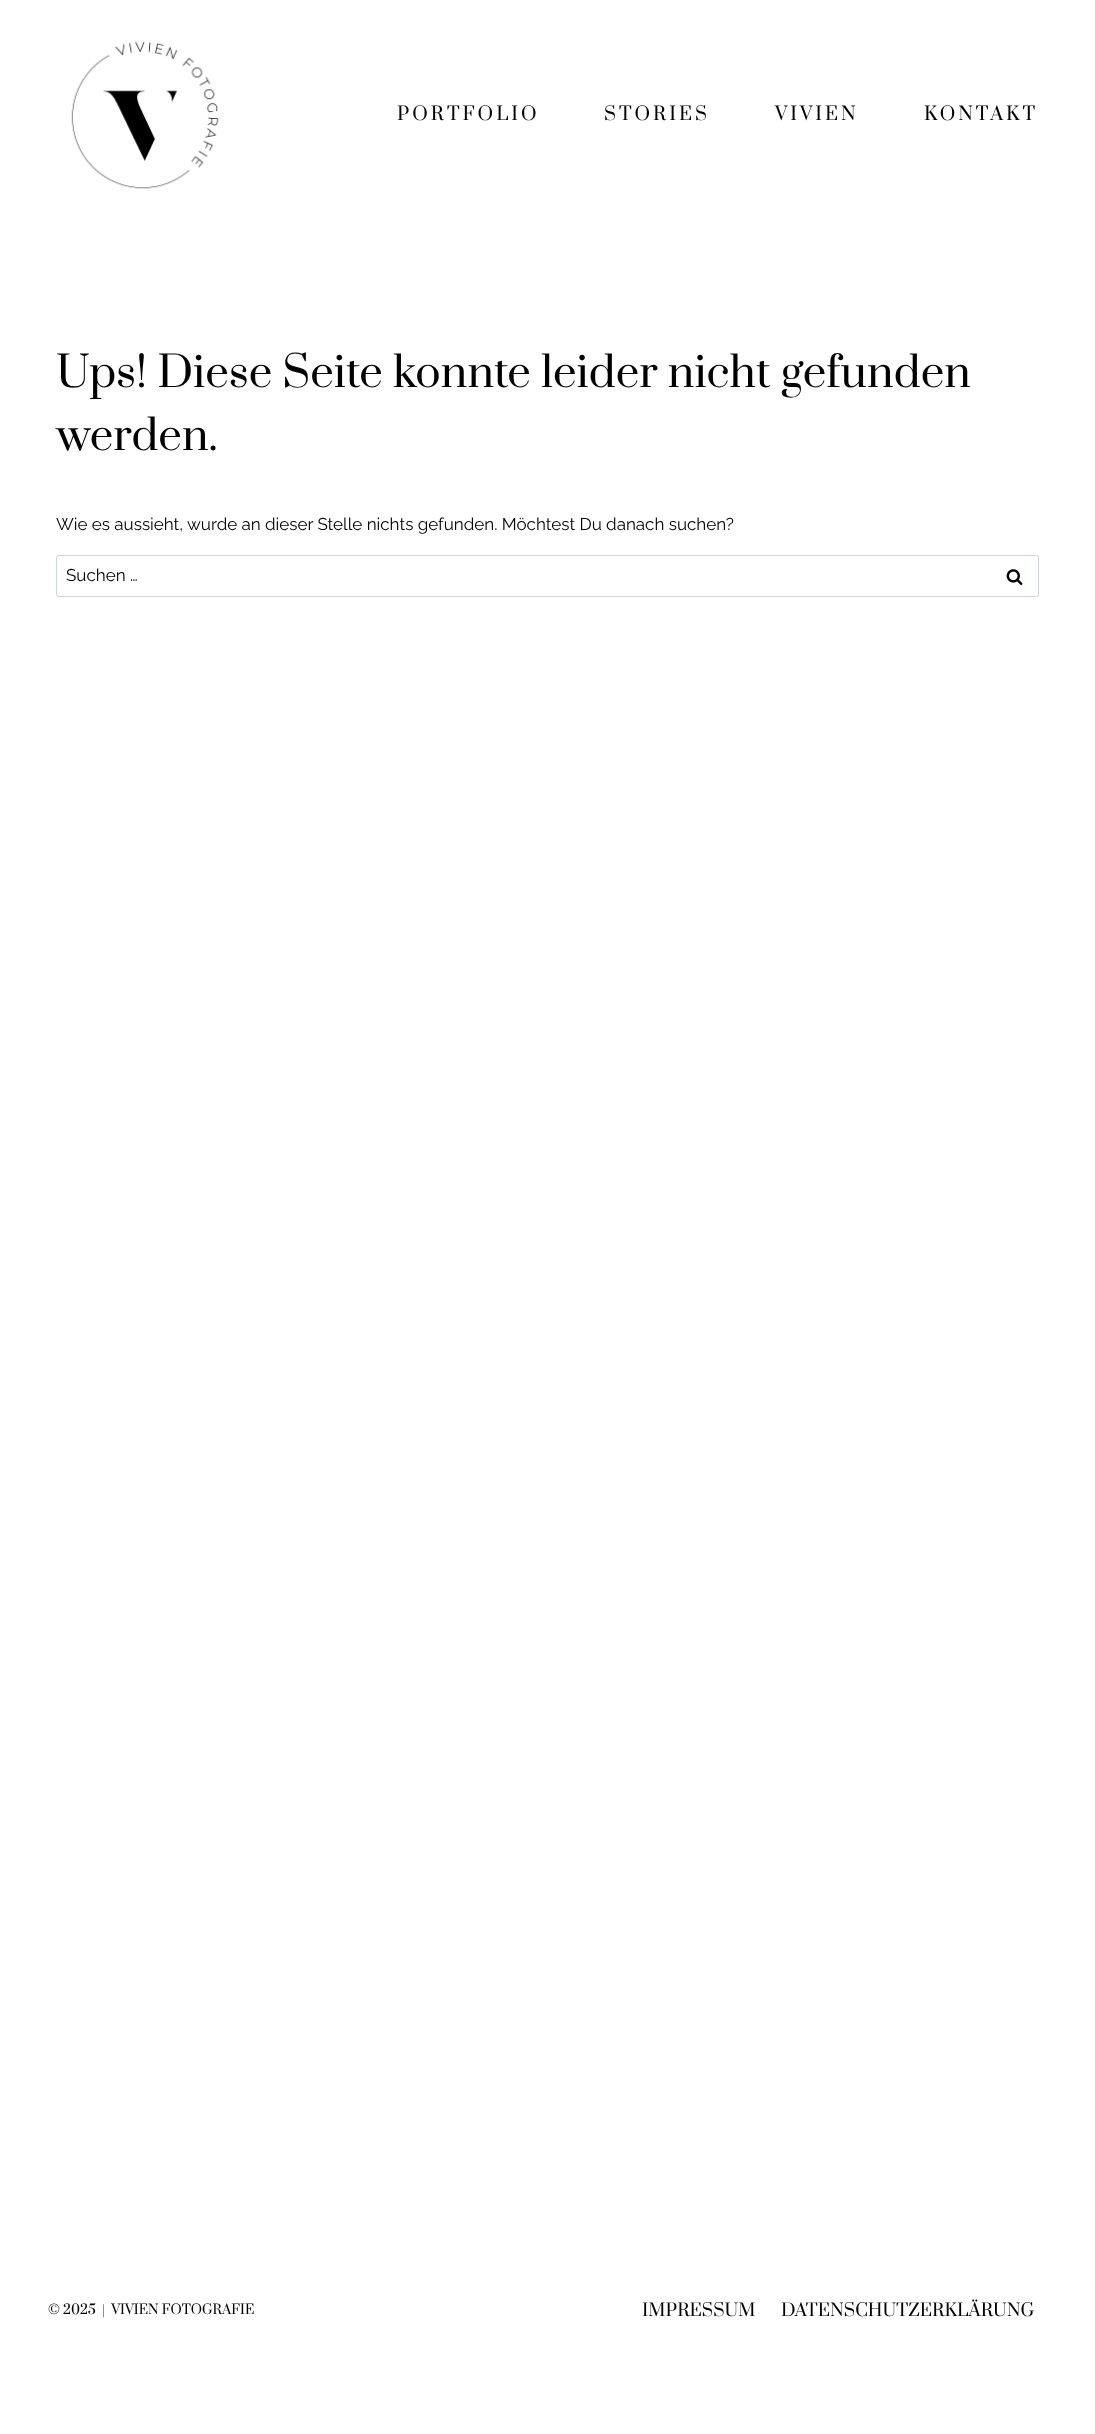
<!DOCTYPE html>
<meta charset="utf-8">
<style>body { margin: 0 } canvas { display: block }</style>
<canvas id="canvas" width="1095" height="2434"></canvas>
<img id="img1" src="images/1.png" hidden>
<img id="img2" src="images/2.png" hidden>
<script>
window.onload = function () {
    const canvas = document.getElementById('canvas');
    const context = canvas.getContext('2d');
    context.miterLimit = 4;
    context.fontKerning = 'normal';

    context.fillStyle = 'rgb(255, 255, 255)';
    context.fillRect(0, 0, 1095, 2434);
    context.drawImage(document.getElementById('img1'), 71, 41, 148, 148);
    context.beginPath();
    context.roundRect(56.5, 555.5, 982, 41, 2.5);
    context.strokeStyle = 'rgb(203, 213, 224)';
    context.stroke();
    context.drawImage(document.getElementById('img2'), 1006, 569, 17, 16);
    context.letterSpacing = '3px';
    context.font = '18px Prata';
    context.fillStyle = 'rgb(0, 0, 0)';
    context.fillText('PORTFOLIO', 397, 120);
    context.fillText('STORIES', 604, 120);
    context.fillText('VIVIEN', 775, 120);
    context.fillText('KONTAKT', 924, 120);
    context.letterSpacing = '0px';
    context.font = '42px Prata';
    context.fillText('Ups! Diese Seite konnte leider nicht gefunden', 56, 387);
    context.fillText('werden.', 56, 450);
    context.font = '17px Raleway';
    context.fillText('Wie es aussieht, wurde an dieser Stelle nichts gefunden. Möchtest Du danach suchen?', 56, 530);
    context.fillText('Suchen …', 66, 581);
    context.font = '13px Prata';
    context.fillText('© 2025  |  VIVIEN FOTOGRAFIE', 48, 2314);
    context.font = '17px Prata';
    context.fillText('IMPRESSUM', 642, 2316);
    context.fillText('DATENSCHUTZERKLÄRUNG', 781, 2316);
};
</script>
